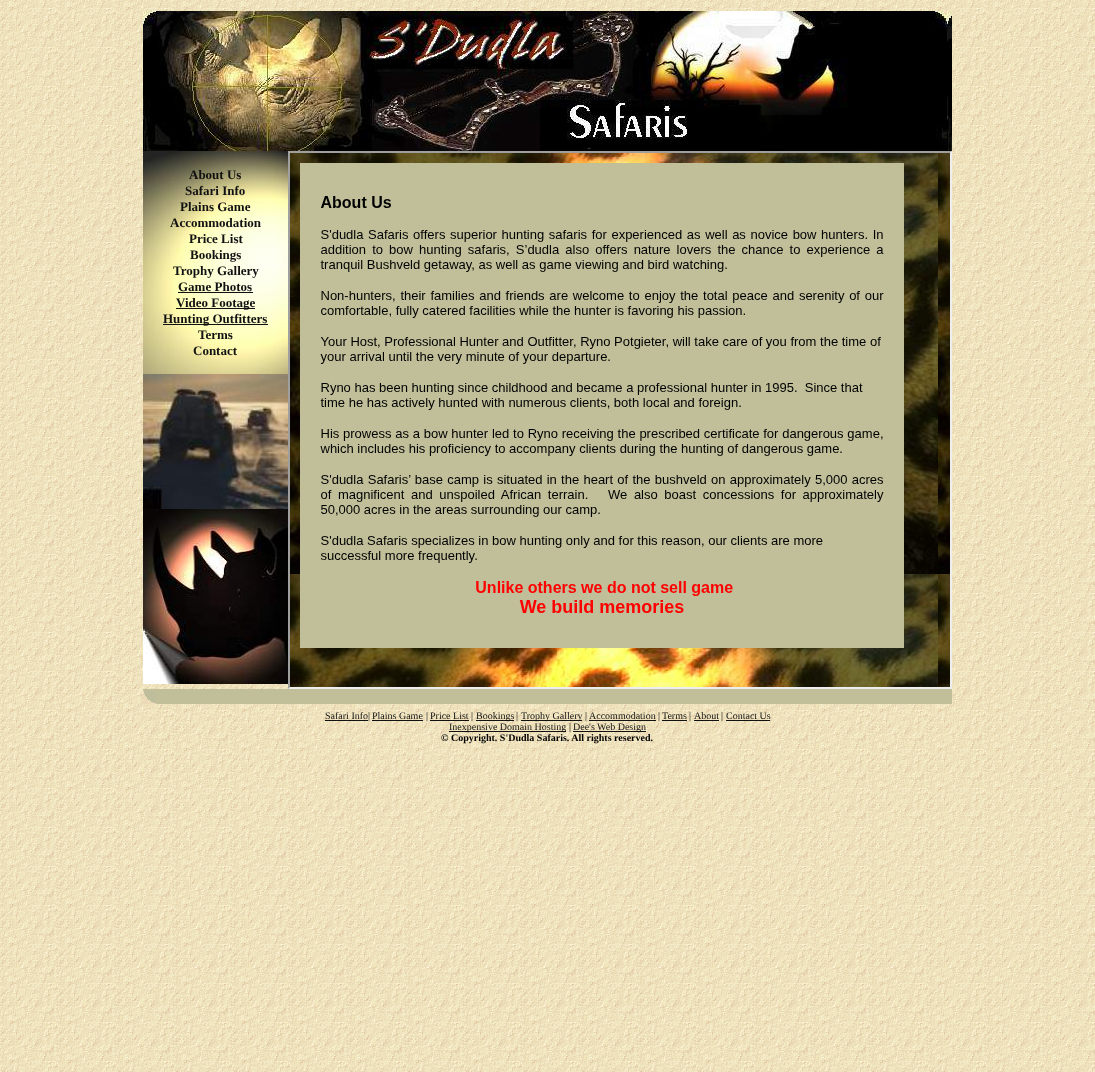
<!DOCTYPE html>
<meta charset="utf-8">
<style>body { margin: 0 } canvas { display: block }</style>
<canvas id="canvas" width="1095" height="1072"></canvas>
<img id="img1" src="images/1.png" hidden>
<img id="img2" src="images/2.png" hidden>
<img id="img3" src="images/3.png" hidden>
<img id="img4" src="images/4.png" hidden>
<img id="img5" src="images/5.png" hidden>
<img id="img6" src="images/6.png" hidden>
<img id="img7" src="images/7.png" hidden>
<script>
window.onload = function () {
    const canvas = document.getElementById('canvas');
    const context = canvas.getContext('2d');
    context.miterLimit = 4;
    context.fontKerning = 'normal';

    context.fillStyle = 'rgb(255, 255, 255)';
    context.fillRect(0, 0, 1095, 1072);
    context.drawImage(document.getElementById('img1'), 0, 0, 1095, 1072);
    context.drawImage(document.getElementById('img2'), 143, 11, 809, 140);
    context.drawImage(document.getElementById('img3'), 143, 151, 145, 223);
    context.fillStyle = 'rgb(17, 17, 17)';
    context.fillRect(178, 292, 75, 1);
    context.fillRect(176, 308, 79, 1);
    context.fillRect(163, 324, 105, 1);
    context.fillStyle = 'rgb(159, 159, 159)';
    context.beginPath();
    context.moveTo(288, 151);
    context.lineTo(952, 151);
    context.lineTo(950, 153);
    context.lineTo(290, 153);
    context.closePath();
    context.fill();
    context.fillStyle = 'rgb(238, 238, 238)';
    context.beginPath();
    context.moveTo(952, 151);
    context.lineTo(952, 689);
    context.lineTo(950, 687);
    context.lineTo(950, 153);
    context.closePath();
    context.fill();
    context.beginPath();
    context.moveTo(952, 689);
    context.lineTo(288, 689);
    context.lineTo(290, 687);
    context.lineTo(950, 687);
    context.closePath();
    context.fill();
    context.fillStyle = 'rgb(159, 159, 159)';
    context.beginPath();
    context.moveTo(288, 689);
    context.lineTo(288, 151);
    context.lineTo(290, 153);
    context.lineTo(290, 687);
    context.closePath();
    context.fill();
    context.drawImage(document.getElementById('img4'), 290, 153, 660, 534);
    context.drawImage(document.getElementById('img5'), 143, 374, 145, 135);
    context.drawImage(document.getElementById('img6'), 143, 509, 145, 175);
    context.fillStyle = 'rgb(192, 191, 154)';
    context.fillRect(143, 689, 809, 15);
    context.drawImage(document.getElementById('img7'), 143, 691, 13, 13);
    context.fillStyle = 'rgb(17, 17, 17)';
    context.fillRect(325, 720, 43, 1);
    context.fillRect(372, 720, 51, 1);
    context.fillRect(430, 720, 39, 1);
    context.fillRect(476, 720, 38, 1);
    context.fillRect(521, 720, 61, 1);
    context.fillRect(589, 720, 67, 1);
    context.fillRect(662, 720, 25, 1);
    context.fillRect(694, 720, 25, 1);
    context.fillRect(726, 720, 44, 1);
    context.fillRect(449, 731, 117, 1);
    context.fillRect(573, 731, 73, 1);
    context.font = 'bold 13px Liberation Serif';
    context.fillText('About Us', 189, 179);
    context.fillText('Safari Info', 185, 195);
    context.fillText('Plains Game', 180, 211);
    context.fillText('Accommodation', 170, 227);
    context.fillText('Price List', 189, 243);
    context.fillText('Bookings', 190, 259);
    context.fillText('Trophy Gallery', 173, 275);
    context.fillText('Game Photos', 178, 291);
    context.fillText('Video Footage', 176, 307);
    context.fillText('Hunting Outfitters', 163, 323);
    context.fillText('Terms', 198, 339);
    context.fillText('Contact', 193, 355);
    context.font = '10px Liberation Serif';
    context.fillText('Safari Info', 325, 719);
    context.fillStyle = 'rgb(0, 0, 0)';
    context.fillText('|', 368, 719);
    context.fillStyle = 'rgb(17, 17, 17)';
    context.fillText('Plains Game', 372, 719);
    context.fillStyle = 'rgb(0, 0, 0)';
    context.fillText('|', 426, 719);
    context.fillStyle = 'rgb(17, 17, 17)';
    context.fillText('Price List', 430, 719);
    context.fillStyle = 'rgb(0, 0, 0)';
    context.fillText('|', 471, 719);
    context.fillStyle = 'rgb(17, 17, 17)';
    context.fillText('Bookings', 476, 719);
    context.fillStyle = 'rgb(0, 0, 0)';
    context.fillText('|', 516, 719);
    context.fillStyle = 'rgb(17, 17, 17)';
    context.fillText('Trophy Gallery', 521, 719);
    context.fillStyle = 'rgb(0, 0, 0)';
    context.fillText('|', 585, 719);
    context.fillStyle = 'rgb(17, 17, 17)';
    context.fillText('Accommodation', 589, 719);
    context.fillStyle = 'rgb(0, 0, 0)';
    context.fillText('|', 658, 719);
    context.fillStyle = 'rgb(17, 17, 17)';
    context.fillText('Terms', 662, 719);
    context.fillStyle = 'rgb(0, 0, 0)';
    context.fillText('|', 689, 719);
    context.fillStyle = 'rgb(17, 17, 17)';
    context.fillText('About', 694, 719);
    context.fillStyle = 'rgb(0, 0, 0)';
    context.fillText('|', 721, 719);
    context.fillStyle = 'rgb(17, 17, 17)';
    context.fillText('Contact Us', 726, 719);
    context.fillText('Inexpensive Domain Hosting', 449, 730);
    context.fillStyle = 'rgb(0, 0, 0)';
    context.fillText('|', 569, 730);
    context.fillStyle = 'rgb(17, 17, 17)';
    context.fillText('Dee\'s Web Design', 573, 730);
    context.font = 'bold 10px Liberation Serif';
    context.fillStyle = 'rgb(0, 0, 0)';
    context.fillText('© Copyright. S\'Dudla Safaris. All rights reserved.', 441, 741);
};
</script>
